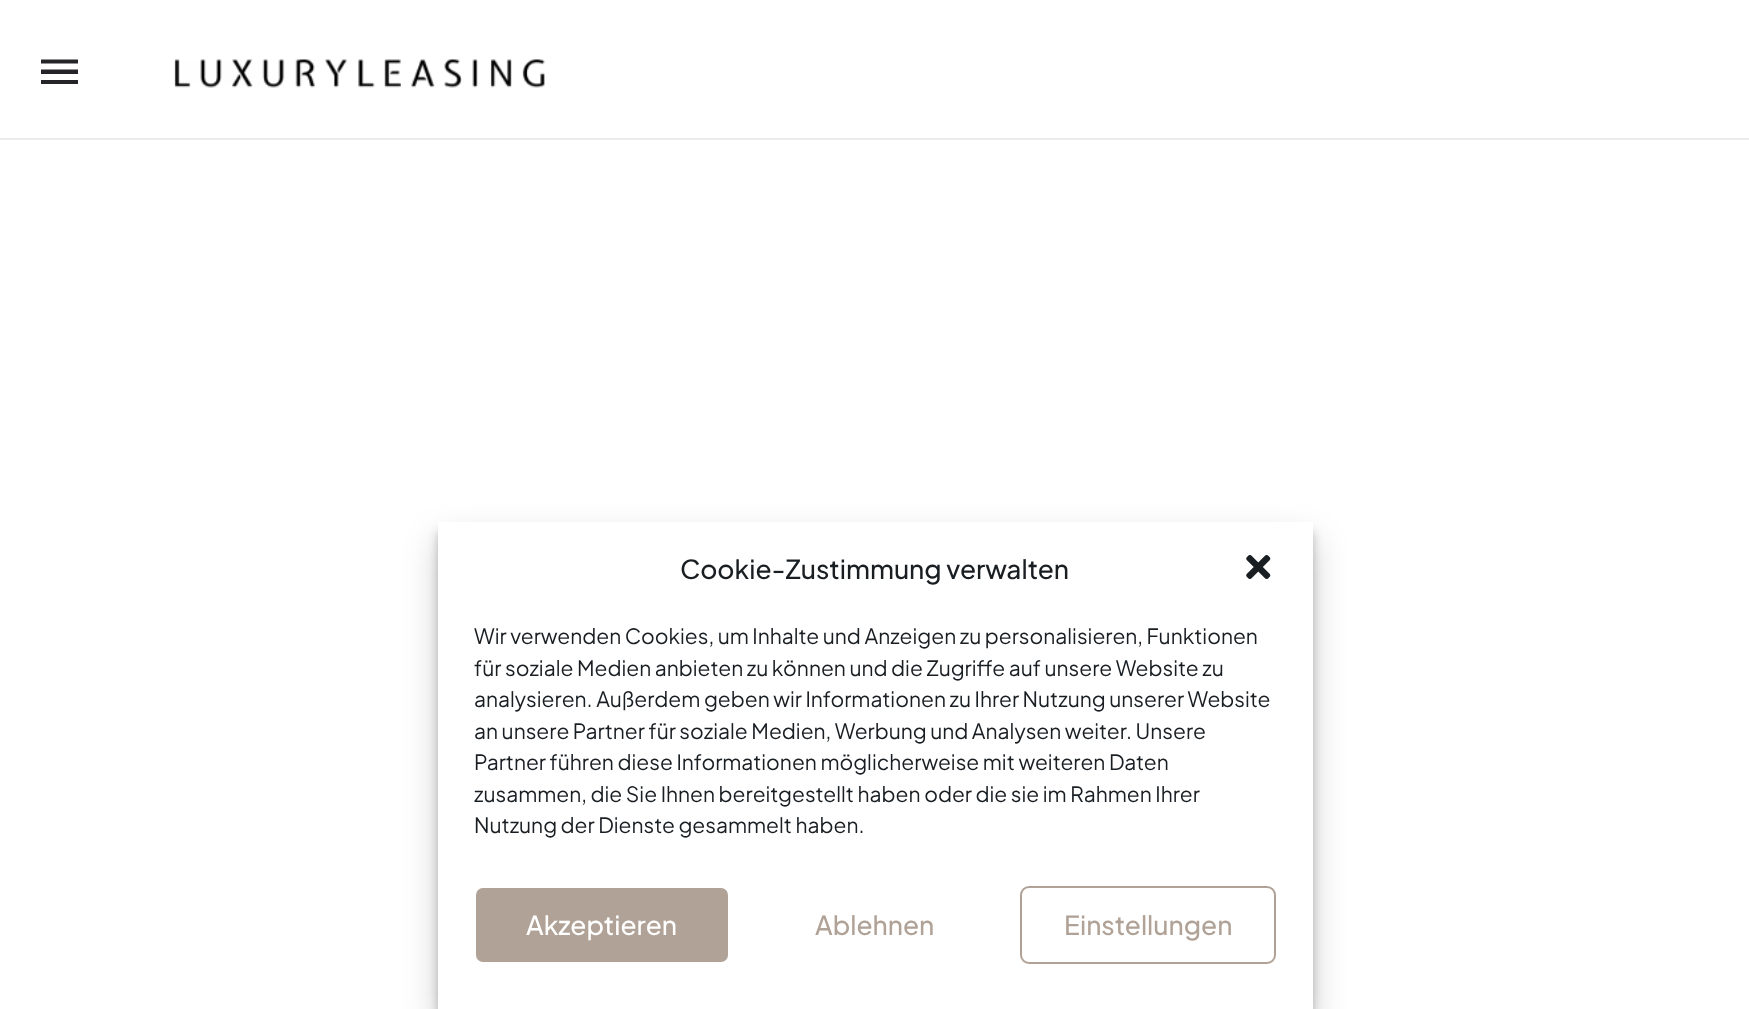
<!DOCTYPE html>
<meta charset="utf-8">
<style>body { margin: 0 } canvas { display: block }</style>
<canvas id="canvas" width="1749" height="1009"></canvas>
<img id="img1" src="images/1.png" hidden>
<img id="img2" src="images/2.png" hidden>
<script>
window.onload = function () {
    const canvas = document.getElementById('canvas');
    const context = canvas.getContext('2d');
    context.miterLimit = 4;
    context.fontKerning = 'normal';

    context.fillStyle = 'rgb(255, 255, 255)';
    context.fillRect(0, 0, 1749, 1009);
    context.fillStyle = 'rgb(36, 36, 41)';
    context.beginPath();
    context.moveTo(41, 59.5);
    context.lineTo(78, 59.5);
    context.lineTo(78, 63.5);
    context.lineTo(41, 63.5);
    context.closePath();
    context.moveTo(41, 74);
    context.lineTo(41, 69.5);
    context.lineTo(78, 69.5);
    context.lineTo(78, 74);
    context.closePath();
    context.moveTo(41, 84);
    context.lineTo(41, 80);
    context.lineTo(78, 80);
    context.lineTo(78, 84);
    context.closePath();
    context.fill();
    context.drawImage(document.getElementById('img1'), 174, 59, 371, 29);
    context.fillStyle = 'rgb(235, 235, 235)';
    context.fillRect(0, 138, 1749, 2);
    context.fillStyle = 'rgba(0, 0, 0, 0.23)';
    context.filter = 'blur(5px)';
    context.beginPath();
    context.rect(438, 532, 875, 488);
    context.fill();
    context.filter = 'none';
    context.fillStyle = 'rgba(0, 0, 0, 0.19)';
    context.filter = 'blur(17.5px)';
    context.beginPath();
    context.rect(438, 539, 875, 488);
    context.fill();
    context.filter = 'none';
    context.fillStyle = 'rgb(255, 255, 255)';
    context.fillRect(438, 522, 875, 487);
    context.drawImage(document.getElementById('img2'), 1246, 555, 25, 24);
    context.fillStyle = 'rgb(176, 162, 150)';
    context.beginPath();
    context.roundRect(475, 887, 254, 76, 8);
    context.fill();
    context.strokeStyle = 'rgb(255, 255, 255)';
    context.lineWidth = 2;
    context.stroke();
    context.beginPath();
    context.roundRect(1021, 887, 254, 76, 8);
    context.strokeStyle = 'rgb(176, 162, 150)';
    context.stroke();
    context.font = '500 26.25px Plus Jakarta Sans';
    context.fillStyle = 'rgb(25, 30, 35)';
    context.fillText('Cookie-Zustimmung verwalten', 680, 579);
    context.font = '21px Plus Jakarta Sans';
    context.fillText('Wir verwenden Cookies, um Inhalte und Anzeigen zu personalisieren, Funktionen', 474, 644);
    context.fillText('für soziale Medien anbieten zu können und die Zugriffe auf unsere Website zu', 474, 676);
    context.fillText('analysieren. Außerdem geben wir Informationen zu Ihrer Nutzung unserer Website', 474, 707);
    context.fillText('an unsere Partner für soziale Medien, Werbung und Analysen weiter. Unsere', 474, 739);
    context.fillText('Partner führen diese Informationen möglicherweise mit weiteren Daten', 474, 770);
    context.fillText('zusammen, die Sie Ihnen bereitgestellt haben oder die sie im Rahmen Ihrer', 474, 802);
    context.fillText('Nutzung der Dienste gesammelt haben.', 474, 833);
    context.font = '500 26.25px Plus Jakarta Sans';
    context.fillStyle = 'rgb(255, 255, 255)';
    context.fillText('Akzeptieren', 526, 935);
    context.fillStyle = 'rgb(176, 162, 150)';
    context.fillText('Ablehnen', 815, 935);
    context.fillText('Einstellungen', 1064, 935);
};
</script>
